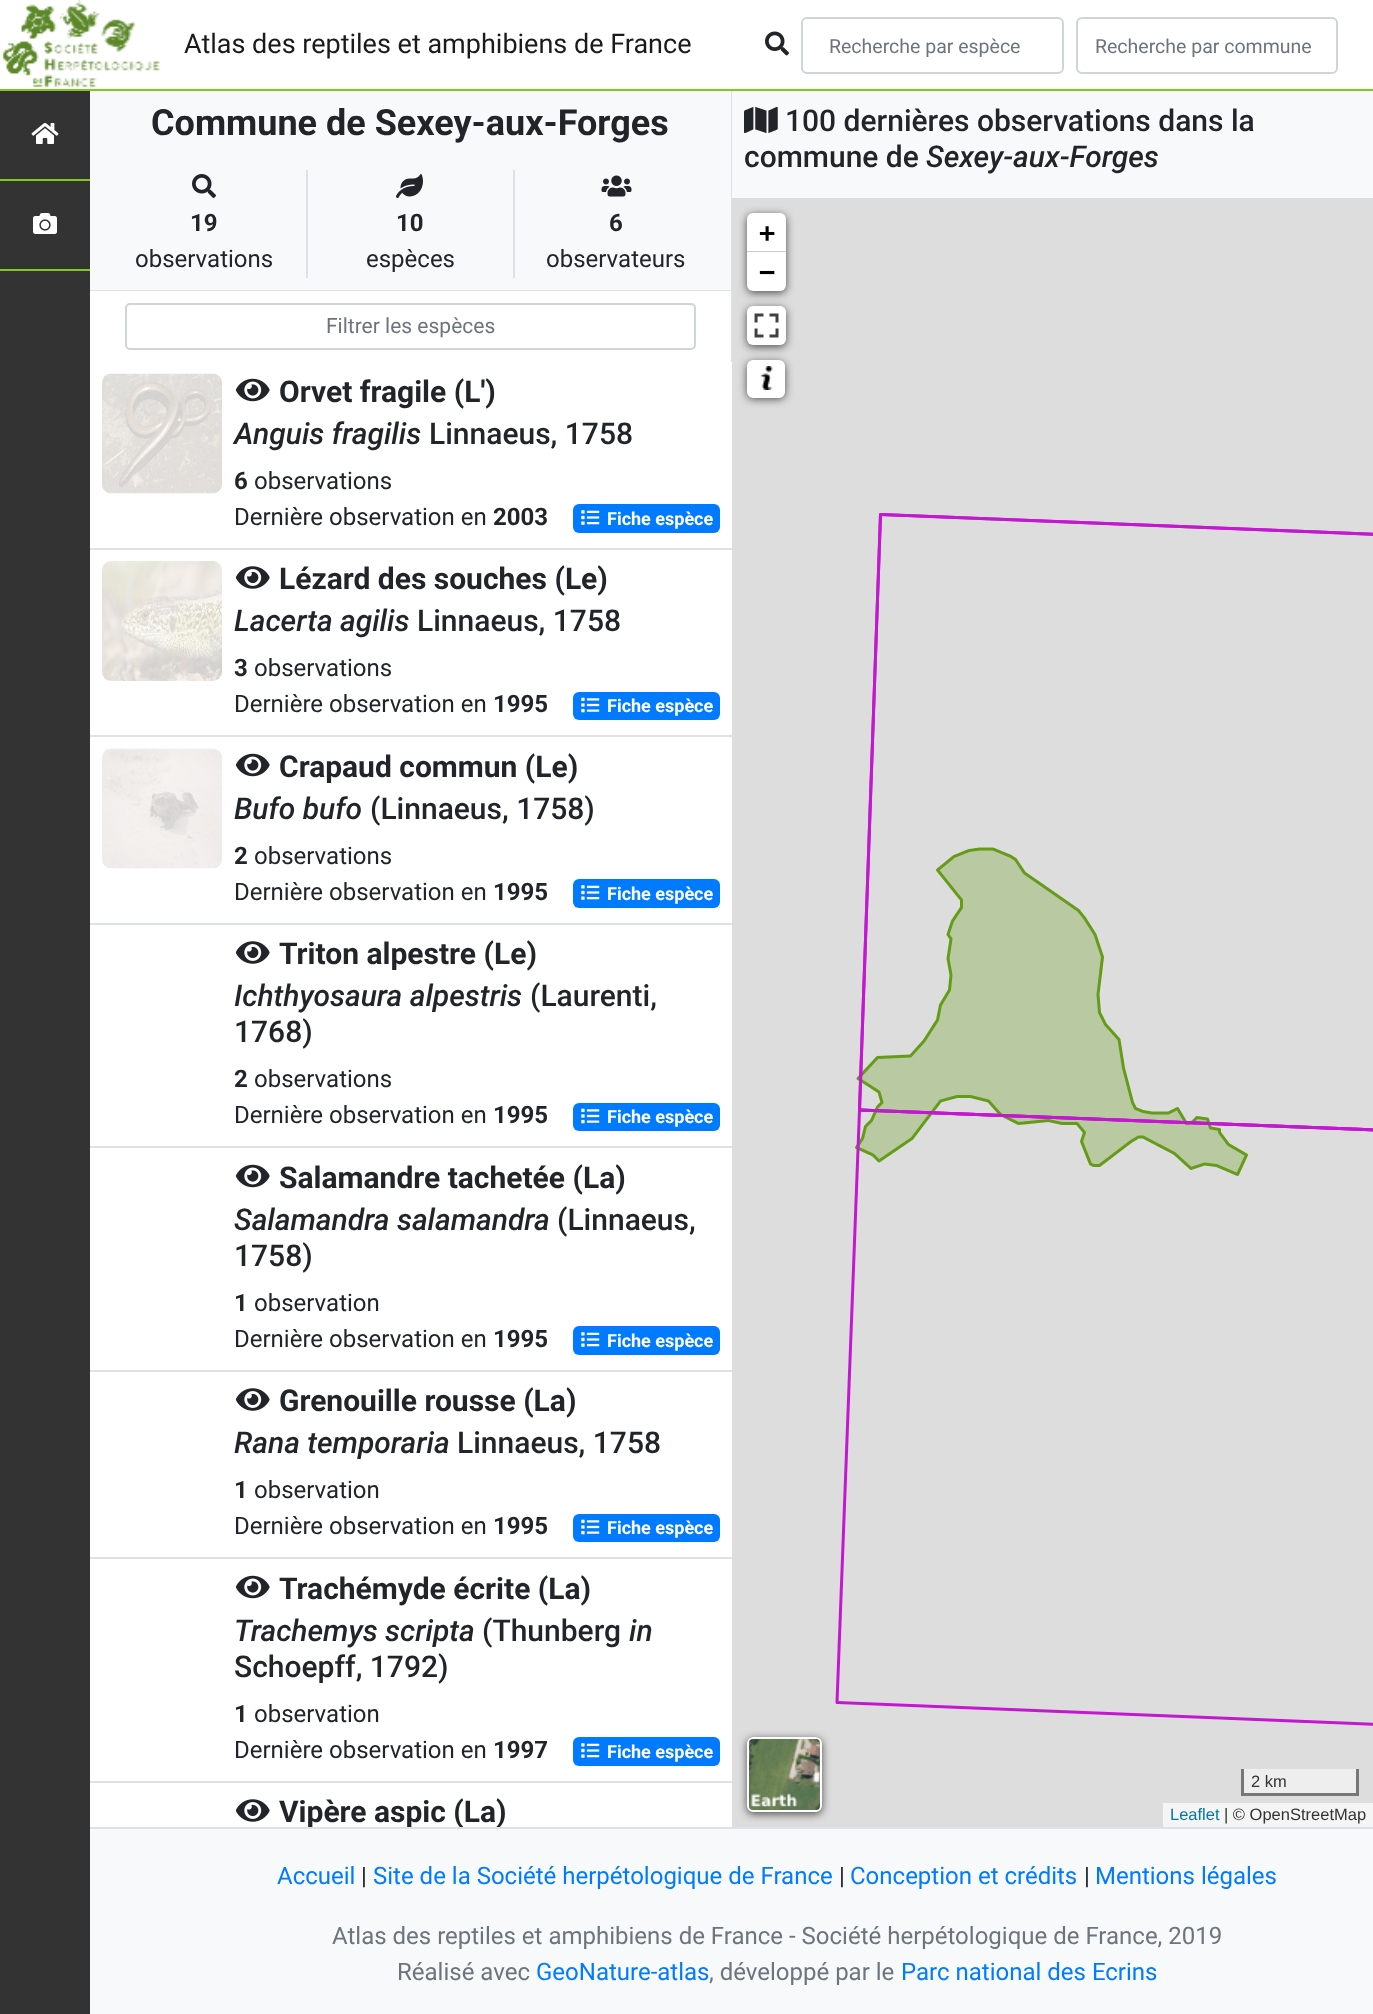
<!DOCTYPE html>
<meta charset="utf-8">
<style>body { margin: 0 } canvas { display: block }</style>
<canvas id="canvas" width="1373" height="2014"></canvas>
<img id="img1" src="images/1.png" hidden>
<img id="img2" src="images/2.png" hidden>
<img id="img3" src="images/3.png" hidden>
<img id="img4" src="images/4.png" hidden>
<img id="img5" src="images/5.png" hidden>
<img id="img6" src="images/6.png" hidden>
<img id="img7" src="images/7.png" hidden>
<img id="img8" src="images/8.png" hidden>
<img id="img9" src="images/9.png" hidden>
<img id="img10" src="images/10.png" hidden>
<img id="img11" src="images/11.png" hidden>
<img id="img12" src="images/12.png" hidden>
<img id="img13" src="images/13.png" hidden>
<img id="img14" src="images/14.png" hidden>
<img id="img15" src="images/15.png" hidden>
<img id="img16" src="images/16.png" hidden>
<img id="img17" src="images/17.png" hidden>
<img id="img18" src="images/18.png" hidden>
<img id="img19" src="images/19.png" hidden>
<script>
window.onload = function () {
    const canvas = document.getElementById('canvas');
    const context = canvas.getContext('2d');
    context.miterLimit = 4;
    context.fontKerning = 'normal';

    context.fillStyle = 'rgb(222, 226, 230)';
    context.fillRect(0, 0, 1373, 2014);
    context.fillStyle = 'rgb(255, 255, 255)';
    context.fillRect(0, 0, 1373, 89);
    context.fillStyle = 'rgb(130, 201, 30)';
    context.fillRect(0, 89, 1373, 2);
    context.drawImage(document.getElementById('img1'), 2, 0, 159, 88);
    context.drawImage(document.getElementById('img2'), 765, 31, 24, 25);
    context.beginPath();
    context.roundRect(802, 18, 261, 55, 5);
    context.strokeStyle = 'rgb(206, 212, 218)';
    context.lineWidth = 2;
    context.stroke();
    context.beginPath();
    context.roundRect(1077, 18, 260, 55, 5);
    context.stroke();
    context.fillStyle = 'rgb(51, 51, 51)';
    context.fillRect(0, 91, 90, 1923);
    context.fillStyle = 'rgb(130, 201, 30)';
    context.fillRect(0, 179, 90, 2);
    context.drawImage(document.getElementById('img3'), 31, 123, 28, 21);
    context.fillRect(0, 269, 90, 2);
    context.drawImage(document.getElementById('img4'), 33, 213, 24, 21);
    context.fillStyle = 'rgb(248, 249, 250)';
    context.fillRect(90, 91, 641, 199);
    context.fillStyle = 'rgb(222, 226, 230)';
    context.fillRect(306, 170, 2, 108);
    context.drawImage(document.getElementById('img5'), 192, 174, 24, 24);
    context.fillRect(513, 170, 2, 108);
    context.drawImage(document.getElementById('img6'), 396, 174, 27, 24);
    context.drawImage(document.getElementById('img7'), 601, 175, 31, 22);
    context.fillStyle = 'rgb(255, 255, 255)';
    context.fillRect(90, 291, 641, 71);
    context.beginPath();
    context.roundRect(126, 304, 569, 45, 4);
    context.stroke();
    context.fillRect(90, 362, 642, 1465);
    context.fillStyle = 'rgb(222, 226, 230)';
    context.fillRect(90, 548, 642, 2);
    context.drawImage(document.getElementById('img8'), 102, 373, 120, 121);
    context.drawImage(document.getElementById('img9'), 235, 378, 35, 24);
    context.fillStyle = 'rgb(0, 123, 255)';
    context.beginPath();
    context.roundRect(573, 504, 147, 29, 6);
    context.fill();
    context.drawImage(document.getElementById('img10'), 581, 510, 19, 15);
    context.fillStyle = 'rgb(222, 226, 230)';
    context.fillRect(90, 735, 642, 2);
    context.drawImage(document.getElementById('img11'), 102, 561, 120, 120);
    context.drawImage(document.getElementById('img12'), 235, 566, 35, 23);
    context.fillStyle = 'rgb(0, 123, 255)';
    context.beginPath();
    context.roundRect(573, 692, 147, 28, 6);
    context.fill();
    context.drawImage(document.getElementById('img13'), 581, 697, 19, 16);
    context.fillStyle = 'rgb(222, 226, 230)';
    context.fillRect(90, 923, 642, 2);
    context.drawImage(document.getElementById('img14'), 102, 748, 120, 121);
    context.drawImage(document.getElementById('img9'), 235, 753, 35, 24);
    context.fillStyle = 'rgb(0, 123, 255)';
    context.beginPath();
    context.roundRect(573, 879, 147, 29, 6);
    context.fill();
    context.drawImage(document.getElementById('img10'), 581, 885, 19, 15);
    context.fillStyle = 'rgb(222, 226, 230)';
    context.fillRect(90, 1146, 642, 2);
    context.drawImage(document.getElementById('img12'), 235, 941, 35, 23);
    context.fillStyle = 'rgb(0, 123, 255)';
    context.beginPath();
    context.roundRect(573, 1103, 147, 28, 6);
    context.fill();
    context.drawImage(document.getElementById('img13'), 581, 1108, 19, 16);
    context.fillStyle = 'rgb(222, 226, 230)';
    context.fillRect(90, 1370, 642, 2);
    context.drawImage(document.getElementById('img9'), 235, 1164, 35, 24);
    context.fillStyle = 'rgb(0, 123, 255)';
    context.beginPath();
    context.roundRect(573, 1326, 147, 29, 6);
    context.fill();
    context.drawImage(document.getElementById('img10'), 581, 1332, 19, 15);
    context.fillStyle = 'rgb(222, 226, 230)';
    context.fillRect(90, 1557, 642, 2);
    context.drawImage(document.getElementById('img12'), 235, 1388, 35, 23);
    context.fillStyle = 'rgb(0, 123, 255)';
    context.beginPath();
    context.roundRect(573, 1514, 147, 28, 6);
    context.fill();
    context.drawImage(document.getElementById('img13'), 581, 1519, 19, 16);
    context.fillStyle = 'rgb(222, 226, 230)';
    context.fillRect(90, 1781, 642, 2);
    context.drawImage(document.getElementById('img9'), 235, 1575, 35, 24);
    context.fillStyle = 'rgb(0, 123, 255)';
    context.beginPath();
    context.roundRect(573, 1737, 147, 29, 6);
    context.fill();
    context.drawImage(document.getElementById('img10'), 581, 1743, 19, 15);
    context.drawImage(document.getElementById('img12'), 235, 1799, 35, 23);
    context.fillStyle = 'rgb(248, 249, 250)';
    context.fillRect(732, 91, 641, 107);
    context.drawImage(document.getElementById('img15'), 744, 106, 34, 28);
    context.fillStyle = 'rgb(221, 221, 221)';
    context.fillRect(732, 198, 641, 1629);
    context.fillStyle = 'rgba(0, 0, 0, 0.65)';
    context.filter = 'blur(4px)';
    context.beginPath();
    context.roundRect(747, 215, 39, 78, 6);
    context.fill();
    context.filter = 'none';
    context.fillStyle = 'rgb(255, 255, 255)';
    context.beginPath();
    context.roundRect(747, 213, 39, 39, [6, 6, 0, 0]);
    context.fill();
    context.fillStyle = 'rgb(204, 204, 204)';
    context.fillRect(747, 251, 39, 1);
    context.fillStyle = 'rgb(255, 255, 255)';
    context.beginPath();
    context.roundRect(747, 252, 39, 39, [0, 0, 6, 6]);
    context.fill();
    context.fillStyle = 'rgba(0, 0, 0, 0.65)';
    context.filter = 'blur(4px)';
    context.beginPath();
    context.roundRect(747, 308, 39, 39, 6);
    context.fill();
    context.filter = 'none';
    context.fillStyle = 'rgb(255, 255, 255)';
    context.beginPath();
    context.roundRect(747, 306, 39, 39, 6);
    context.fill();
    context.drawImage(document.getElementById('img16'), 754, 313, 25, 25);
    context.fillStyle = 'rgba(0, 0, 0, 0.65)';
    context.filter = 'blur(4px)';
    context.beginPath();
    context.roundRect(747, 362, 38, 37, 6);
    context.fill();
    context.filter = 'none';
    context.fillStyle = 'rgb(255, 255, 255)';
    context.beginPath();
    context.roundRect(748, 361, 36, 36, 5);
    context.fill();
    context.strokeStyle = 'rgb(255, 255, 255)';
    context.stroke();
    context.drawImage(document.getElementById('img17'), 760, 366, 13, 24);
    context.fillStyle = 'rgba(0, 0, 0, 0.65)';
    context.filter = 'blur(4px)';
    context.beginPath();
    context.roundRect(747, 1739, 75, 75, 6);
    context.fill();
    context.filter = 'none';
    context.drawImage(document.getElementById('img18'), 747, 1737, 75, 75);
    context.beginPath();
    context.roundRect(748, 1738, 73, 73, 5);
    context.stroke();
    context.fillStyle = 'rgb(238, 238, 238)';
    context.fillRect(1244, 1769, 112, 24);
    context.fillStyle = 'rgb(119, 119, 119)';
    context.fillRect(1356, 1769, 3, 27);
    context.fillRect(1241, 1793, 118, 3);
    context.fillRect(1241, 1769, 3, 27);
    context.fillStyle = 'rgb(245, 245, 245)';
    context.fillRect(1163, 1803, 210, 24);
    context.drawImage(document.getElementById('img19'), 835, 513, 538, 1213);
    context.fillStyle = 'rgb(248, 249, 250)';
    context.fillRect(90, 1829, 1283, 185);
    context.font = '27px Roboto';
    context.fillStyle = 'rgb(26, 26, 26)';
    context.fillText('Atlas des reptiles et amphibiens de France', 184, 53);
    context.font = '19.5px Roboto';
    context.fillStyle = 'rgb(108, 117, 125)';
    context.fillText('Recherche par espèce', 829, 53);
    context.fillText('Recherche par commune', 1095, 53);
    context.font = 'bold 36px Roboto';
    context.fillStyle = 'rgb(33, 37, 41)';
    context.fillText('Commune de Sexey-aux-Forges', 151, 135);
    context.font = 'bold 24px Roboto';
    context.fillText('19', 190, 231);
    context.font = '24px Roboto';
    context.fillText('observations', 135, 267);
    context.font = 'bold 24px Roboto';
    context.fillText('10', 396, 231);
    context.font = '24px Roboto';
    context.fillText('espèces', 366, 267);
    context.font = 'bold 24px Roboto';
    context.fillText('6', 609, 231);
    context.font = '24px Roboto';
    context.fillText('observateurs', 546, 267);
    context.font = '21px Roboto';
    context.fillStyle = 'rgb(108, 117, 125)';
    context.fillText('Filtrer les espèces', 326, 333);
    context.font = 'bold 30px Roboto';
    context.fillStyle = 'rgb(33, 37, 41)';
    context.fillText('Orvet fragile (L\')', 279, 402);
    context.font = 'italic 500 30px Roboto';
    context.fillText('Anguis fragilis', 234, 444);
    context.font = '500 30px Roboto';
    context.fillText('Linnaeus, 1758', 429, 444);
    context.font = 'bold 24px Roboto';
    context.fillText('6', 234, 489);
    context.font = '24px Roboto';
    context.fillText('observations', 254, 489);
    context.fillText('Dernière observation en', 234, 525);
    context.font = 'bold 24px Roboto';
    context.fillText('2003', 493, 525);
    context.font = 'bold 18px Roboto';
    context.fillStyle = 'rgb(255, 255, 255)';
    context.fillText('Fiche espèce', 607, 525);
    context.font = 'bold 30px Roboto';
    context.fillStyle = 'rgb(33, 37, 41)';
    context.fillText('Lézard des souches (Le)', 279, 589);
    context.font = 'italic 500 30px Roboto';
    context.fillText('Lacerta agilis', 234, 631);
    context.font = '500 30px Roboto';
    context.fillText('Linnaeus, 1758', 417, 631);
    context.font = 'bold 24px Roboto';
    context.fillText('3', 234, 676);
    context.font = '24px Roboto';
    context.fillText('observations', 254, 676);
    context.fillText('Dernière observation en', 234, 712);
    context.font = 'bold 24px Roboto';
    context.fillText('1995', 493, 712);
    context.font = 'bold 18px Roboto';
    context.fillStyle = 'rgb(255, 255, 255)';
    context.fillText('Fiche espèce', 607, 712);
    context.font = 'bold 30px Roboto';
    context.fillStyle = 'rgb(33, 37, 41)';
    context.fillText('Crapaud commun (Le)', 279, 777);
    context.font = 'italic 500 30px Roboto';
    context.fillText('Bufo bufo', 234, 819);
    context.font = '500 30px Roboto';
    context.fillText('(Linnaeus, 1758)', 370, 819);
    context.font = 'bold 24px Roboto';
    context.fillText('2', 234, 864);
    context.font = '24px Roboto';
    context.fillText('observations', 254, 864);
    context.fillText('Dernière observation en', 234, 900);
    context.font = 'bold 24px Roboto';
    context.fillText('1995', 493, 900);
    context.font = 'bold 18px Roboto';
    context.fillStyle = 'rgb(255, 255, 255)';
    context.fillText('Fiche espèce', 607, 900);
    context.font = 'bold 30px Roboto';
    context.fillStyle = 'rgb(33, 37, 41)';
    context.fillText('Triton alpestre (Le)', 279, 964);
    context.font = 'italic 500 30px Roboto';
    context.fillText('Ichthyosaura alpestris', 234, 1006);
    context.font = '500 30px Roboto';
    context.fillText('(Laurenti,', 530, 1006);
    context.fillText('1768)', 234, 1042);
    context.font = 'bold 24px Roboto';
    context.fillText('2', 234, 1087);
    context.font = '24px Roboto';
    context.fillText('observations', 254, 1087);
    context.fillText('Dernière observation en', 234, 1123);
    context.font = 'bold 24px Roboto';
    context.fillText('1995', 493, 1123);
    context.font = 'bold 18px Roboto';
    context.fillStyle = 'rgb(255, 255, 255)';
    context.fillText('Fiche espèce', 607, 1123);
    context.font = 'bold 30px Roboto';
    context.fillStyle = 'rgb(33, 37, 41)';
    context.fillText('Salamandre tachetée (La)', 279, 1188);
    context.font = 'italic 500 30px Roboto';
    context.fillText('Salamandra salamandra', 234, 1230);
    context.font = '500 30px Roboto';
    context.fillText('(Linnaeus,', 557, 1230);
    context.fillText('1758)', 234, 1266);
    context.font = 'bold 24px Roboto';
    context.fillText('1', 234, 1311);
    context.font = '24px Roboto';
    context.fillText('observation', 254, 1311);
    context.fillText('Dernière observation en', 234, 1347);
    context.font = 'bold 24px Roboto';
    context.fillText('1995', 493, 1347);
    context.font = 'bold 18px Roboto';
    context.fillStyle = 'rgb(255, 255, 255)';
    context.fillText('Fiche espèce', 607, 1347);
    context.font = 'bold 30px Roboto';
    context.fillStyle = 'rgb(33, 37, 41)';
    context.fillText('Grenouille rousse (La)', 279, 1411);
    context.font = 'italic 500 30px Roboto';
    context.fillText('Rana temporaria', 234, 1453);
    context.font = '500 30px Roboto';
    context.fillText('Linnaeus, 1758', 457, 1453);
    context.font = 'bold 24px Roboto';
    context.fillText('1', 234, 1498);
    context.font = '24px Roboto';
    context.fillText('observation', 254, 1498);
    context.fillText('Dernière observation en', 234, 1534);
    context.font = 'bold 24px Roboto';
    context.fillText('1995', 493, 1534);
    context.font = 'bold 18px Roboto';
    context.fillStyle = 'rgb(255, 255, 255)';
    context.fillText('Fiche espèce', 607, 1534);
    context.font = 'bold 30px Roboto';
    context.fillStyle = 'rgb(33, 37, 41)';
    context.fillText('Trachémyde écrite (La)', 279, 1599);
    context.font = 'italic 500 30px Roboto';
    context.fillText('Trachemys scripta', 234, 1641);
    context.font = '500 30px Roboto';
    context.fillText('(Thunberg', 482, 1641);
    context.font = 'italic 500 30px Roboto';
    context.fillText('in', 629, 1641);
    context.font = '500 30px Roboto';
    context.fillText('Schoepff, 1792)', 234, 1677);
    context.font = 'bold 24px Roboto';
    context.fillText('1', 234, 1722);
    context.font = '24px Roboto';
    context.fillText('observation', 254, 1722);
    context.fillText('Dernière observation en', 234, 1758);
    context.font = 'bold 24px Roboto';
    context.fillText('1997', 493, 1758);
    context.font = 'bold 18px Roboto';
    context.fillStyle = 'rgb(255, 255, 255)';
    context.fillText('Fiche espèce', 607, 1758);
    context.save();
    context.beginPath();
    context.rect(90, 362, 642, 1465);
    context.clip();
    context.font = 'bold 30px Roboto';
    context.fillStyle = 'rgb(33, 37, 41)';
    context.fillText('Vipère aspic (La)', 279, 1822);
    context.restore();
    context.font = '500 30px Roboto';
    context.fillStyle = 'rgb(33, 37, 41)';
    context.fillText('100 dernières observations dans la', 785, 131);
    context.fillText('commune de', 744, 167);
    context.font = 'italic 500 30px Roboto';
    context.fillText('Sexey-aux-Forges', 926, 167);
    context.font = 'bold 27px DejaVu Sans Mono';
    context.fillStyle = 'rgb(0, 0, 0)';
    context.fillText('+', 759, 242);
    context.fillText('−', 759, 281);
    context.font = '16.5px Liberation Sans';
    context.fillStyle = 'rgb(51, 51, 51)';
    context.fillText('2 km', 1251, 1787);
    context.fillStyle = 'rgb(0, 120, 168)';
    context.fillText('Leaflet', 1170, 1820);
    context.fillStyle = 'rgb(51, 51, 51)';
    context.fillText('| © OpenStreetMap', 1224, 1820);
    context.font = '24px Roboto';
    context.fillStyle = 'rgb(0, 123, 255)';
    context.fillText('Accueil', 277, 1884);
    context.fillStyle = 'rgb(33, 37, 41)';
    context.fillText('|', 361, 1884);
    context.fillStyle = 'rgb(0, 123, 255)';
    context.fillText('Site de la Société herpétologique de France', 373, 1884);
    context.fillStyle = 'rgb(33, 37, 41)';
    context.fillText('|', 839, 1884);
    context.fillStyle = 'rgb(0, 123, 255)';
    context.fillText('Conception et crédits', 850, 1884);
    context.fillStyle = 'rgb(33, 37, 41)';
    context.fillText('|', 1084, 1884);
    context.fillStyle = 'rgb(0, 123, 255)';
    context.fillText('Mentions légales', 1095, 1884);
    context.fillStyle = 'rgb(108, 117, 125)';
    context.fillText('Atlas des reptiles et amphibiens de France - Société herpétologique de France, 2019', 332, 1944);
    context.fillText('Réalisé avec', 397, 1980);
    context.fillStyle = 'rgb(0, 123, 255)';
    context.fillText('GeoNature-atlas', 536, 1980);
    context.fillStyle = 'rgb(108, 117, 125)';
    context.fillText(', développé par le', 709, 1980);
    context.fillStyle = 'rgb(0, 123, 255)';
    context.fillText('Parc national des Ecrins', 901, 1980);
};
</script>
